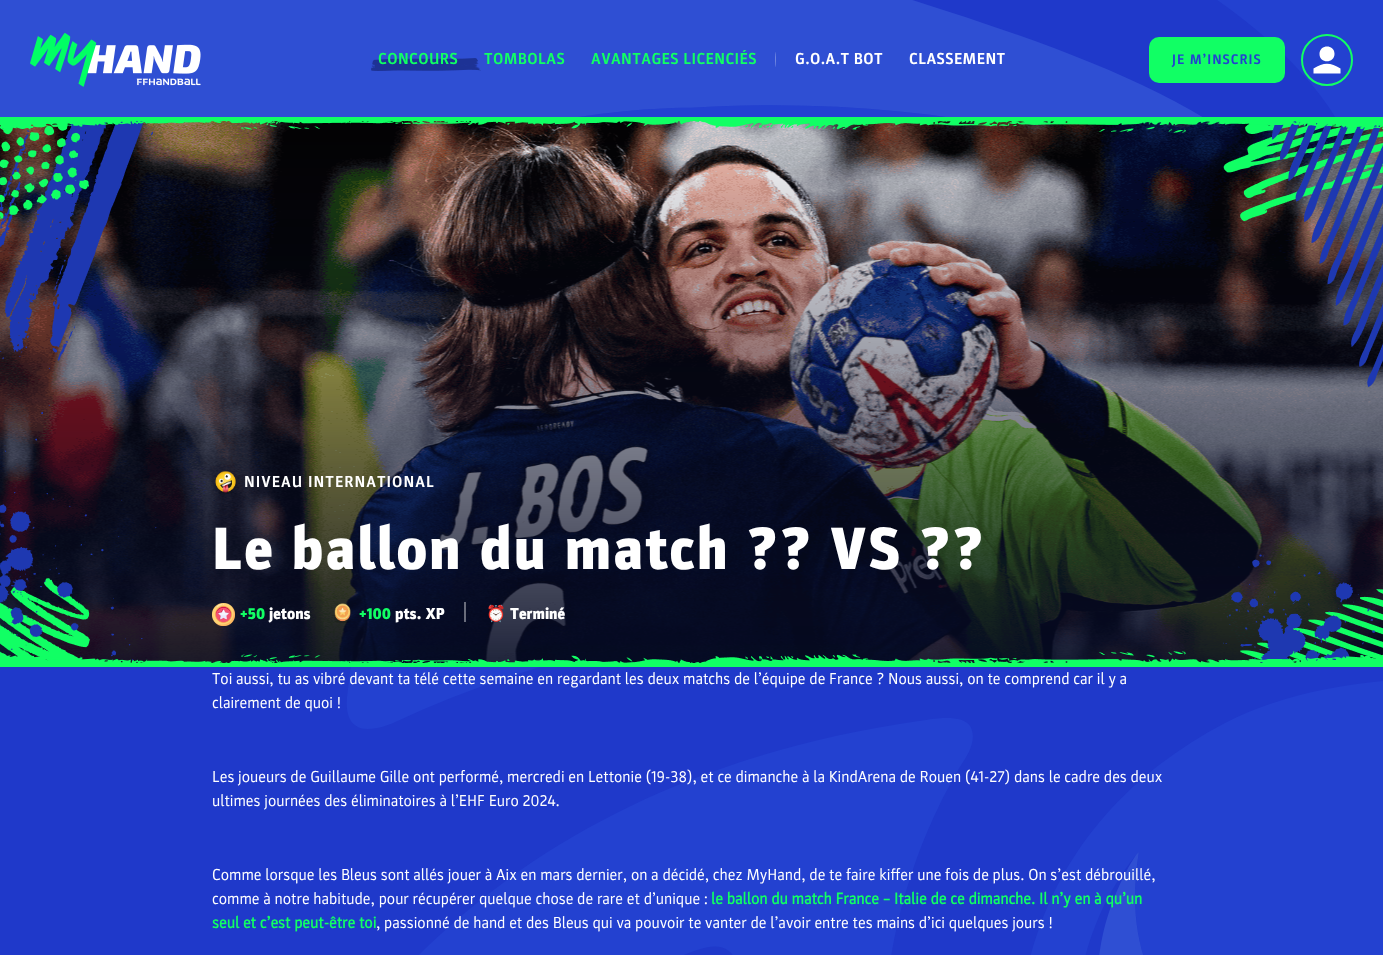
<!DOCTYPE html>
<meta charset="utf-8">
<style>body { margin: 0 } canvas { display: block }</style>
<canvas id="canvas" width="1383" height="955"></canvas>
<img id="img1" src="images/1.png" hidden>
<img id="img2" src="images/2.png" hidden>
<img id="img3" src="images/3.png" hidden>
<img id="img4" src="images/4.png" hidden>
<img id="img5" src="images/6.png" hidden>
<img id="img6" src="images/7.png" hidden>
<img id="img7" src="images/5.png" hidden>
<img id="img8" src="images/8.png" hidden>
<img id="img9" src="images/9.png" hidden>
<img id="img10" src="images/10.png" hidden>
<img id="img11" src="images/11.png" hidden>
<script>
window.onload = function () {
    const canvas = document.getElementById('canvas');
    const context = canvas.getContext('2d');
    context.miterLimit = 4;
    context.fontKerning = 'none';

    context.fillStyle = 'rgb(35, 65, 208)';
    context.fillRect(0, 0, 1383, 955);
    context.drawImage(document.getElementById('img1'), 0, 0, 1383, 955);
    context.drawImage(document.getElementById('img2'), 30, 33, 171, 54);
    context.drawImage(document.getElementById('img3'), 371, 58, 110, 13);
    context.fillStyle = 'rgb(109, 132, 224)';
    context.beginPath();
    context.ellipse(775.5, 59.5, 0.5, 7.5, 0, 0, 2 * Math.PI);
    context.fill();
    context.fillStyle = 'rgb(17, 255, 100)';
    context.beginPath();
    context.roundRect(1149, 37, 136, 46, 10);
    context.fill();
    context.beginPath();
    context.arc(1327, 60, 25, 0, 2 * Math.PI);
    context.strokeStyle = 'rgb(17, 255, 100)';
    context.lineWidth = 2;
    context.stroke();
    context.fillStyle = 'rgb(255, 255, 255)';
    context.beginPath();
    context.moveTo(1313.5, 73.5);
    context.lineTo(1313.5, 68.5);
    context.bezierCurveTo(1323.5, 62, 1330.5, 62, 1340.5, 68.5);
    context.lineTo(1340.5, 73.5);
    context.closePath();
    context.moveTo(1319.5, 54);
    context.bezierCurveTo(1319.5, 44.5, 1334, 44, 1334.5, 53.5);
    context.bezierCurveTo(1335, 63.5, 1319.5, 64, 1319.5, 54);
    context.closePath();
    context.fill();
    context.drawImage(document.getElementById('img4'), 0, 121, 1383, 542);
    context.drawImage(document.getElementById('img5'), 0, 121, 157, 540);
    context.drawImage(document.getElementById('img6'), 1223, 121, 160, 542);
    context.drawImage(document.getElementById('img7'), 0, 117, 1383, 16);
    context.drawImage(document.getElementById('img8'), 0, 651, 1383, 16);
    context.drawImage(document.getElementById('img9'), 215, 471, 21, 23);
    context.drawImage(document.getElementById('img10'), 212, 603, 23, 23);
    context.drawImage(document.getElementById('img11'), 334, 603, 17, 20);
    context.fillStyle = 'rgba(255, 255, 255, 0.4)';
    context.fillRect(464, 602, 2, 20);
    context.letterSpacing = '0.4px';
    context.font = 'bold 16px "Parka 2"';
    context.fillStyle = 'rgb(17, 255, 100)';
    context.fillText('CONCOURS', 378, 64);
    context.fillText('TOMBOLAS', 484, 64);
    context.fillText('AVANTAGES LICENCIÉS', 591, 64);
    context.fillStyle = 'rgb(255, 255, 255)';
    context.fillText('G.O.A.T BOT', 795, 64);
    context.fillText('CLASSEMENT', 909, 64);
    context.letterSpacing = '1px';
    context.font = 'bold 14px "Parka 2"';
    context.fillStyle = 'rgb(35, 65, 208)';
    context.fillText('JE M’INSCRIS', 1172, 64);
    context.font = 'bold 16px "Parka 2"';
    context.fillStyle = 'rgb(255, 255, 255)';
    context.fillText('NIVEAU INTERNATIONAL', 244, 487);
    context.letterSpacing = '2px';
    context.font = '900 60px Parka';
    context.fillText('Le ballon du match ?? VS ??', 212, 569);
    context.letterSpacing = '0px';
    context.font = '900 16px Parka';
    context.fillStyle = 'rgb(17, 255, 100)';
    context.fillText('+50', 240, 619);
    context.fillStyle = 'rgb(255, 255, 255)';
    context.fillText('jetons', 269, 619);
    context.fillStyle = 'rgb(17, 255, 100)';
    context.fillText('+100', 359, 619);
    context.fillStyle = 'rgb(255, 255, 255)';
    context.fillText('pts. XP', 395, 619);
    context.font = 'bold 16px Noto Color Emoji';
    context.fillText('⏰', 486, 619);
    context.font = '900 16px Parka';
    context.fillText('Terminé', 510, 619);
    context.font = '16px Parka';
    context.fillText('Toi aussi, tu as vibré devant ta télé cette semaine en regardant les deux matchs de l’équipe de France ? Nous aussi, on te comprend car il y a', 212, 684);
    context.fillText('clairement de quoi !', 212, 708);
    context.fillText('Les joueurs de Guillaume Gille ont performé, mercredi en Lettonie (19-38), et ce dimanche à la KindArena de Rouen (41-27) dans le cadre des deux', 212, 782);
    context.fillText('ultimes journées des éliminatoires à l’EHF Euro 2024.', 212, 806);
    context.fillText('Comme lorsque les Bleus sont allés jouer à Aix en mars dernier, on a décidé, chez MyHand, de te faire kiffer une fois de plus. On s’est débrouillé,', 212, 880);
    context.fillText('comme à notre habitude, pour récupérer quelque chose de rare et d’unique :', 212, 904);
    context.font = 'bold 16px Parka';
    context.fillStyle = 'rgb(17, 255, 100)';
    context.fillText('le ballon du match France – Italie de ce dimanche. Il n’y en à qu’un', 711, 904);
    context.fillText('seul et c’est peut-être toi', 212, 928);
    context.font = '16px Parka';
    context.fillStyle = 'rgb(255, 255, 255)';
    context.fillText(', passionné de hand et des Bleus qui va pouvoir te vanter de l’avoir entre tes mains d’ici quelques jours !', 376, 928);
};
</script>
